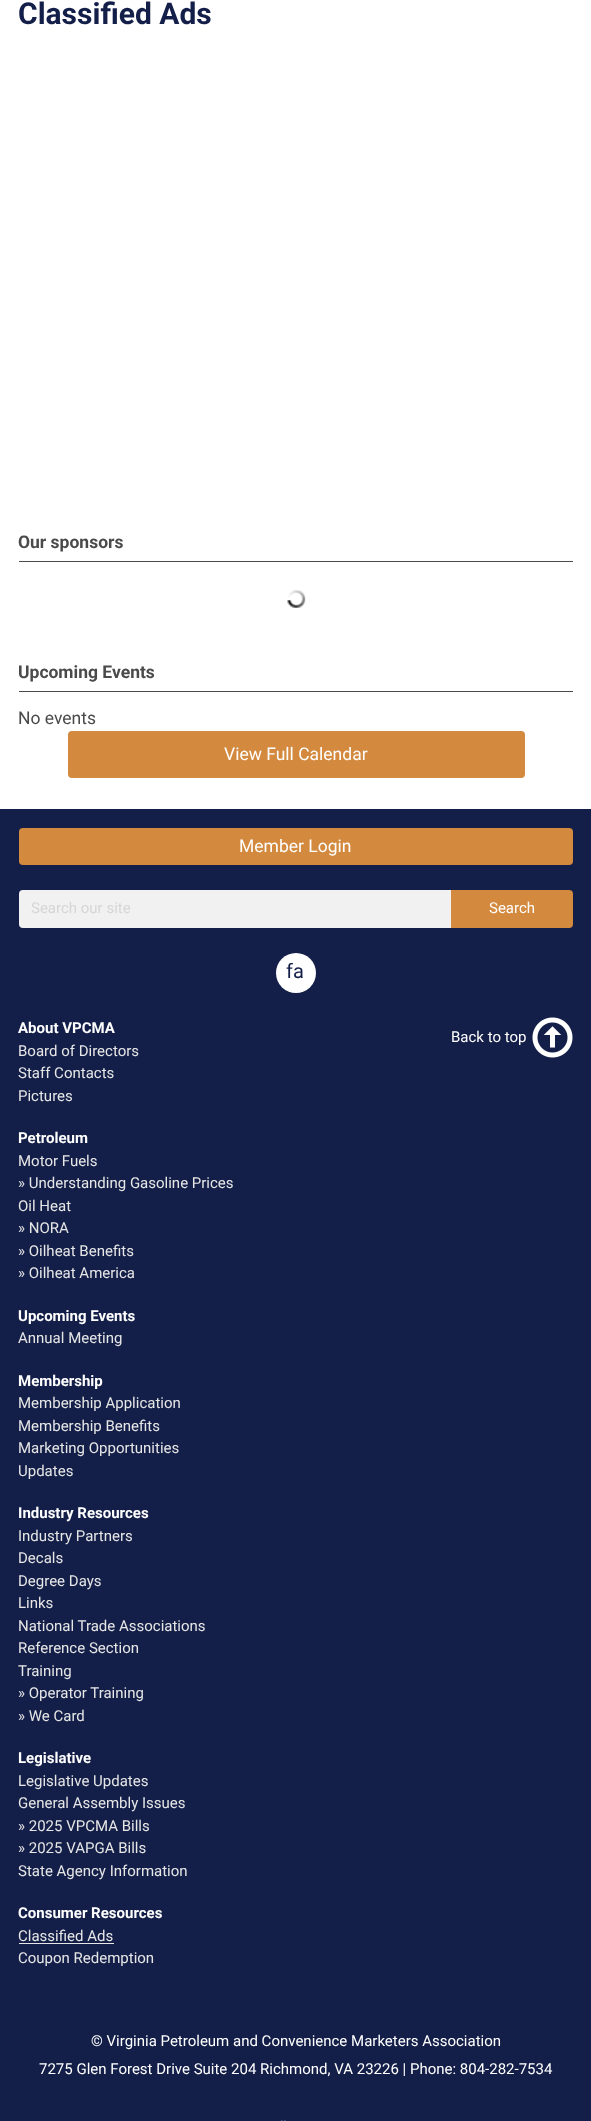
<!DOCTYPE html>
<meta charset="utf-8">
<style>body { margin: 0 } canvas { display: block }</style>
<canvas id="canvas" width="591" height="2121"></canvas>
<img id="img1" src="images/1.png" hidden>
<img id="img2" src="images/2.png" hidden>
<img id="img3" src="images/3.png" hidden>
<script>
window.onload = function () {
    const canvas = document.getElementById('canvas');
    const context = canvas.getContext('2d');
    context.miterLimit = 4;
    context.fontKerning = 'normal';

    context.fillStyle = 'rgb(255, 255, 255)';
    context.fillRect(0, 0, 591, 2121);
    context.fillStyle = 'rgb(74, 74, 74)';
    context.fillRect(19, 561, 554, 1);
    context.drawImage(document.getElementById('img1'), 287, 590, 19, 18);
    context.fillRect(19, 691, 554, 1);
    context.fillStyle = 'rgb(211, 137, 62)';
    context.beginPath();
    context.roundRect(68, 731, 457, 47, 4);
    context.fill();
    context.fillStyle = 'rgb(19, 31, 72)';
    context.fillRect(0, 809, 591, 1312);
    context.fillStyle = 'rgb(211, 137, 62)';
    context.beginPath();
    context.roundRect(19, 828, 554, 37, 4);
    context.fill();
    context.fillStyle = 'rgb(241, 241, 241)';
    context.beginPath();
    context.roundRect(19, 890, 432, 38, [4, 0, 0, 4]);
    context.fill();
    context.fillStyle = 'rgb(211, 137, 62)';
    context.beginPath();
    context.roundRect(451, 890, 122, 38, [0, 4, 4, 0]);
    context.fill();
    context.fillStyle = 'rgb(255, 255, 255)';
    context.beginPath();
    context.arc(296, 973, 20, 0, 2 * Math.PI);
    context.fill();
    context.fillStyle = 'rgb(230, 230, 230)';
    context.fillRect(19, 1943, 95, 1);
    context.drawImage(document.getElementById('img2'), 532, 1017, 41, 41);
    context.drawImage(document.getElementById('img3'), 281, 2120, 5, 1);
    context.font = 'bold 30px Roboto';
    context.fillStyle = 'rgb(19, 31, 72)';
    context.fillText('Classified Ads', 18, 24);
    context.font = 'bold 17.5px Roboto';
    context.fillStyle = 'rgb(74, 74, 74)';
    context.fillText('Our sponsors', 18, 548);
    context.fillText('Upcoming Events', 18, 678);
    context.font = '17.5px Roboto';
    context.fillText('No events', 18, 724);
    context.fillStyle = 'rgb(255, 255, 255)';
    context.fillText('View Full Calendar', 224, 760);
    context.fillText('Member Login', 239, 852);
    context.font = '15px Roboto';
    context.fillStyle = 'rgb(214, 214, 214)';
    context.fillText('Search our site', 31, 913);
    context.fillStyle = 'rgb(255, 255, 255)';
    context.fillText('Search', 489, 913);
    context.save();
    context.beginPath();
    context.rect(286, 963, 20, 20);
    context.clip();
    context.font = '20px Roboto';
    context.fillStyle = 'rgb(19, 31, 72)';
    context.fillText('fa', 286, 978);
    context.restore();
    context.font = 'bold 15px Roboto';
    context.fillText('About VPCMA', 18, 1033);
    context.font = '15px Roboto';
    context.fillStyle = 'rgb(230, 230, 230)';
    context.fillText('Board of Directors', 18, 1056);
    context.fillText('Staff Contacts', 18, 1078);
    context.fillText('Pictures', 18, 1101);
    context.font = 'bold 15px Roboto';
    context.fillStyle = 'rgb(255, 255, 255)';
    context.fillText('Petroleum', 18, 1143);
    context.font = '15px Roboto';
    context.fillStyle = 'rgb(230, 230, 230)';
    context.fillText('Motor Fuels', 18, 1166);
    context.fillText('» Understanding Gasoline Prices', 18, 1188);
    context.fillText('Oil Heat', 18, 1211);
    context.fillText('» NORA', 18, 1233);
    context.fillText('» Oilheat Benefits', 18, 1256);
    context.fillText('» Oilheat America', 18, 1278);
    context.font = 'bold 15px Roboto';
    context.fillStyle = 'rgb(255, 255, 255)';
    context.fillText('Upcoming Events', 18, 1321);
    context.font = '15px Roboto';
    context.fillStyle = 'rgb(230, 230, 230)';
    context.fillText('Annual Meeting', 18, 1343);
    context.font = 'bold 15px Roboto';
    context.fillStyle = 'rgb(255, 255, 255)';
    context.fillText('Membership', 18, 1386);
    context.font = '15px Roboto';
    context.fillStyle = 'rgb(230, 230, 230)';
    context.fillText('Membership Application', 18, 1408);
    context.fillText('Membership Benefits', 18, 1431);
    context.fillText('Marketing Opportunities', 18, 1453);
    context.fillText('Updates', 18, 1476);
    context.font = 'bold 15px Roboto';
    context.fillStyle = 'rgb(255, 255, 255)';
    context.fillText('Industry Resources', 18, 1518);
    context.font = '15px Roboto';
    context.fillStyle = 'rgb(230, 230, 230)';
    context.fillText('Industry Partners', 18, 1541);
    context.fillText('Decals', 18, 1563);
    context.fillText('Degree Days', 18, 1586);
    context.fillText('Links', 18, 1608);
    context.fillText('National Trade Associations', 18, 1631);
    context.fillText('Reference Section', 18, 1653);
    context.fillText('Training', 18, 1676);
    context.fillText('» Operator Training', 18, 1698);
    context.fillText('» We Card', 18, 1721);
    context.font = 'bold 15px Roboto';
    context.fillStyle = 'rgb(255, 255, 255)';
    context.fillText('Legislative', 18, 1763);
    context.font = '15px Roboto';
    context.fillStyle = 'rgb(230, 230, 230)';
    context.fillText('Legislative Updates', 18, 1786);
    context.fillText('General Assembly Issues', 18, 1808);
    context.fillText('» 2025 VPCMA Bills', 18, 1831);
    context.fillText('» 2025 VAPGA Bills', 18, 1853);
    context.fillText('State Agency Information', 18, 1876);
    context.font = 'bold 15px Roboto';
    context.fillStyle = 'rgb(255, 255, 255)';
    context.fillText('Consumer Resources', 18, 1918);
    context.font = '15px Roboto';
    context.fillStyle = 'rgb(230, 230, 230)';
    context.fillText('Classified Ads', 18, 1941);
    context.fillText('Coupon Redemption', 18, 1963);
    context.fillStyle = 'rgb(255, 255, 255)';
    context.fillText('Back to top', 451, 1042);
    context.fillText('© Virginia Petroleum and Convenience Marketers Association', 91, 2046);
    context.fillText('7275 Glen Forest Drive Suite 204 Richmond, VA 23226 | Phone: 804-282-7534', 39, 2074);
};
</script>
